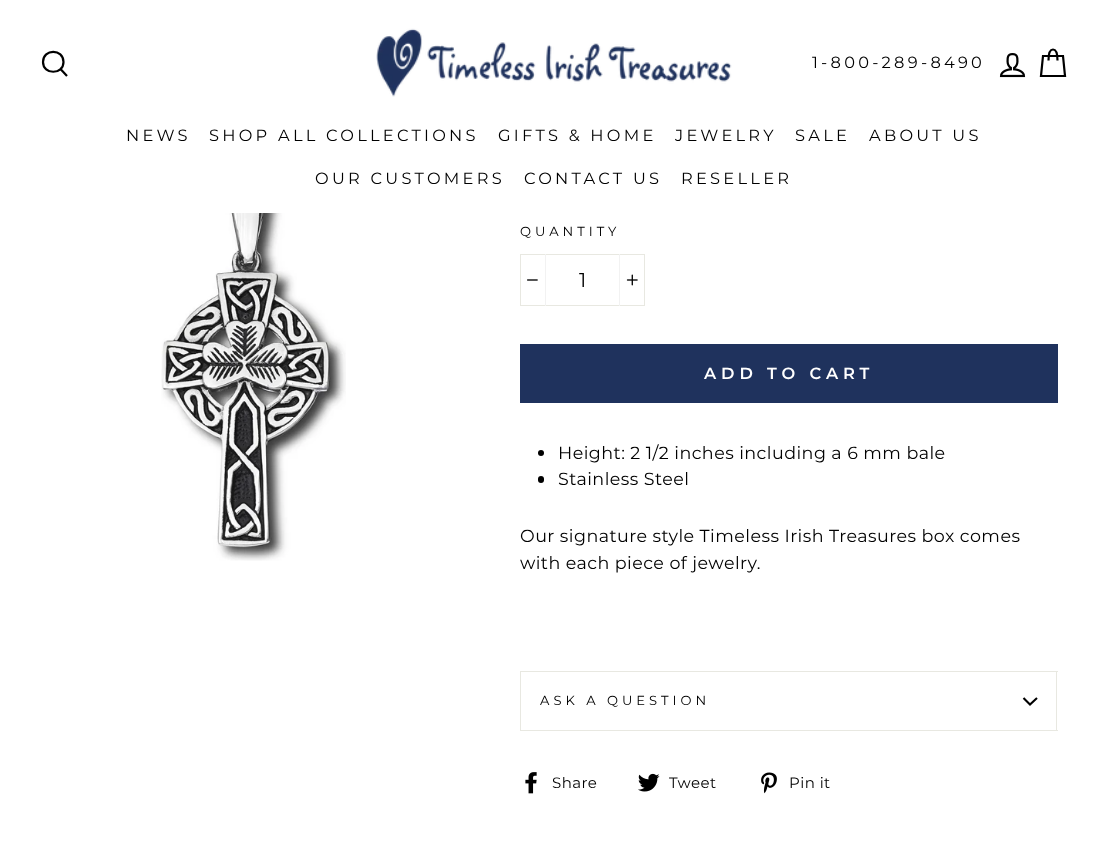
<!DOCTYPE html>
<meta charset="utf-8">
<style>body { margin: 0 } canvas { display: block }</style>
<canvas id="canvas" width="1107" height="845"></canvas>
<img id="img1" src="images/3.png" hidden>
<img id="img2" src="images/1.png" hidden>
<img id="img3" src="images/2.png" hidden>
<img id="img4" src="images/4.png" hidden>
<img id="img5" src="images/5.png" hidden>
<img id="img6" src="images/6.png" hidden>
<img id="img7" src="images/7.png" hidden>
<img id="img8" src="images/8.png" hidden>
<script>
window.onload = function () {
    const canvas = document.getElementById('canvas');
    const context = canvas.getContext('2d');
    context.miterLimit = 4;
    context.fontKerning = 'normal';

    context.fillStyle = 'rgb(255, 255, 255)';
    context.fillRect(0, 0, 1107, 845);
    context.drawImage(document.getElementById('img1'), 161, 213, 185, 348);
    context.fillStyle = 'rgba(0, 0, 0, 0.2)';
    context.filter = 'blur(0.5px)';
    context.beginPath();
    context.rect(0, 0, 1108, 213);
    context.fill();
    context.filter = 'none';
    context.fillStyle = 'rgb(255, 255, 255)';
    context.fillRect(0, 0, 1107, 213);
    context.beginPath();
    context.moveTo(63.5, 62);
    context.bezierCurveTo(63.5, 75, 43, 75, 43, 62);
    context.bezierCurveTo(43, 48.5, 63.5, 48.5, 63.5, 62);
    context.closePath();
    context.moveTo(67, 76);
    context.lineTo(60.5, 69);
    context.strokeStyle = 'rgb(0, 0, 0)';
    context.lineWidth = 2.2;
    context.stroke();
    context.drawImage(document.getElementById('img2'), 376, 28, 356, 69);
    context.drawImage(document.getElementById('img3'), 999, 53, 27, 25);
    context.beginPath();
    context.moveTo(1048.5, 60.5);
    context.bezierCurveTo(1048.5, 52, 1050.5, 49.5, 1053, 49.5);
    context.bezierCurveTo(1055.5, 49.5, 1057.5, 52, 1057.5, 60.5);
    context.moveTo(1043, 56);
    context.lineTo(1063, 56);
    context.lineTo(1065, 76);
    context.lineTo(1041, 76);
    context.closePath();
    context.stroke();
    context.strokeStyle = 'rgb(232, 232, 225)';
    context.lineWidth = 1;
    context.strokeRect(520.5, 254.5, 124, 51);
    context.fillStyle = 'rgb(242, 242, 242)';
    context.fillRect(545, 254, 1, 52);
    context.drawImage(document.getElementById('img4'), 527, 279, 11, 2);
    context.fillRect(619, 254, 1, 52);
    context.drawImage(document.getElementById('img5'), 626, 274, 12, 12);
    context.fillStyle = 'rgb(31, 50, 93)';
    context.fillRect(520, 344, 538, 59);
    context.fillStyle = 'rgb(0, 0, 0)';
    context.beginPath();
    context.arc(541, 453, 3, 0, 2 * Math.PI);
    context.fill();
    context.beginPath();
    context.roundRect(538, 476, 6, 7, 3);
    context.fill();
    context.fillStyle = 'rgb(232, 232, 225)';
    context.fillRect(520, 730, 538, 1);
    context.fillRect(520, 671, 538, 1);
    context.fillRect(1056, 671, 1, 59);
    context.fillRect(520, 671, 1, 59);
    context.beginPath();
    context.moveTo(1023.5, 698);
    context.lineTo(1030, 704.5);
    context.lineTo(1037, 698);
    context.strokeStyle = 'rgb(0, 0, 0)';
    context.lineWidth = 2.1;
    context.stroke();
    context.drawImage(document.getElementById('img6'), 525, 772, 12, 22);
    context.drawImage(document.getElementById('img7'), 638, 773, 22, 19);
    context.drawImage(document.getElementById('img8'), 761, 772, 16, 22);
    context.letterSpacing = '3.25px';
    context.font = '16.25px Montserrat';
    context.fillStyle = 'rgb(0, 0, 0)';
    context.fillText('1-800-289-8490', 812, 68);
    context.fillText('NEWS', 126, 141);
    context.fillText('SHOP ALL COLLECTIONS', 209, 141);
    context.fillText('GIFTS & HOME', 498, 141);
    context.fillText('JEWELRY', 675, 141);
    context.fillText('SALE', 795, 141);
    context.fillText('ABOUT US', 869, 141);
    context.fillText('OUR CUSTOMERS', 315, 184);
    context.fillText('CONTACT US', 524, 184);
    context.fillText('RESELLER', 681, 184);
    context.letterSpacing = '4px';
    context.font = '13.1px Montserrat';
    context.fillText('QUANTITY', 520, 236);
    context.letterSpacing = '0px';
    context.font = '20px Montserrat';
    context.fillText('1', 579, 287);
    context.letterSpacing = '4.9px';
    context.font = '600 16.25px Montserrat';
    context.fillStyle = 'rgb(255, 255, 255)';
    context.fillText('ADD TO CART', 704, 379);
    context.letterSpacing = '0.45px';
    context.font = '17.5px Montserrat';
    context.fillStyle = 'rgb(0, 0, 0)';
    context.fillText('Height: 2 1/2 inches including a 6 mm bale', 558, 459);
    context.fillText('Stainless Steel', 558, 485);
    context.fillText('Our signature style Timeless Irish Treasures box comes', 520, 542);
    context.fillText('with each piece of jewelry.', 520, 569);
    context.letterSpacing = '4px';
    context.font = '13.1px Montserrat';
    context.fillText('ASK A QUESTION', 540, 705);
    context.letterSpacing = '0.45px';
    context.font = '15px Montserrat';
    context.fillText('Share', 552, 788);
    context.fillText('Tweet', 669, 788);
    context.fillText('Pin it', 789, 788);
};
</script>
